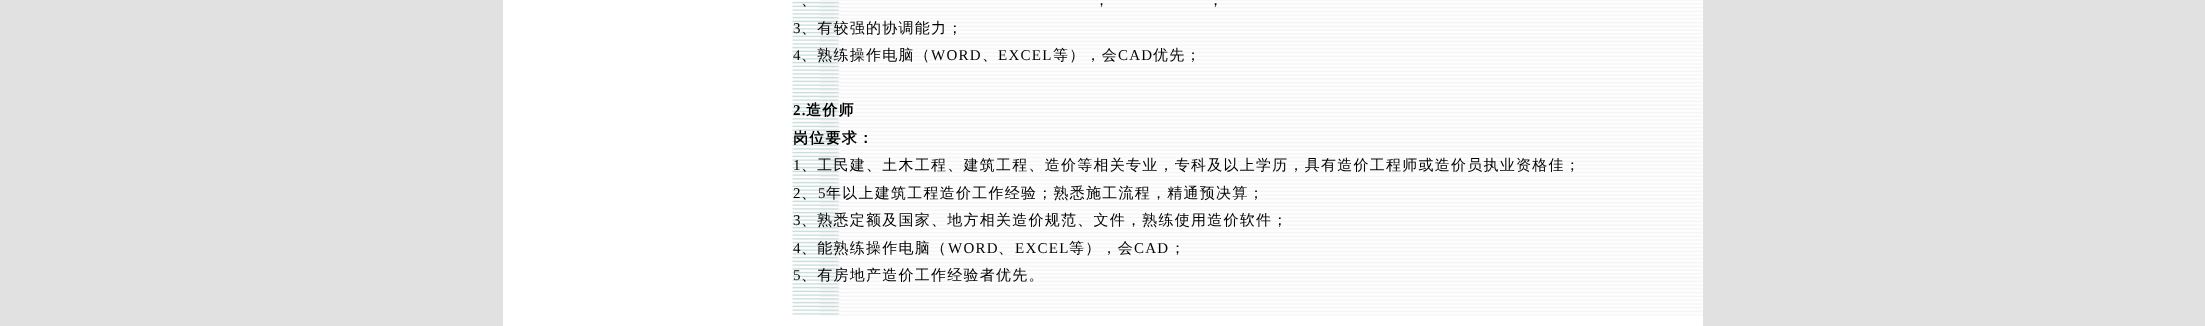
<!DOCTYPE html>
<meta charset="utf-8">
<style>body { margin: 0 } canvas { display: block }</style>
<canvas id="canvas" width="2205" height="326"></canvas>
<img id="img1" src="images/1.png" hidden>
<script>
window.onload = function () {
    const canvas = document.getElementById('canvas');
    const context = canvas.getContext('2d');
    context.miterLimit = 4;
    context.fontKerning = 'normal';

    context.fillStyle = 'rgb(225, 225, 225)';
    context.fillRect(0, 0, 2205, 326);
    context.fillStyle = 'rgb(255, 255, 255)';
    context.fillRect(503, 0, 1200, 326);
    context.drawImage(document.getElementById('img1'), 792, 0, 911, 316);
    context.letterSpacing = '1.25px';
    context.font = '500 15px WenQuanYi Zen Hei';
    context.fillStyle = 'rgb(0, 0, 0)';
    context.fillText('、', 801, 5);
    context.fillText('，', 1094, 5);
    context.fillText('，', 1208, 5);
    context.font = '15px Liberation Serif';
    context.fillText('3', 793, 33);
    context.font = '500 15px WenQuanYi Zen Hei';
    context.fillText('、有较强的协调能力；', 801, 33);
    context.font = '15px Liberation Serif';
    context.fillText('4', 793, 60);
    context.font = '500 15px WenQuanYi Zen Hei';
    context.fillText('、熟练操作电脑（', 801, 60);
    context.font = '15px Liberation Serif';
    context.fillText('WORD', 931, 60);
    context.font = '500 15px WenQuanYi Zen Hei';
    context.fillText('、', 982, 60);
    context.font = '15px Liberation Serif';
    context.fillText('EXCEL', 998, 60);
    context.font = '500 15px WenQuanYi Zen Hei';
    context.fillText('等），会', 1053, 60);
    context.font = '15px Liberation Serif';
    context.fillText('CAD', 1118, 60);
    context.font = '500 15px WenQuanYi Zen Hei';
    context.fillText('优先；', 1153, 60);
    context.font = 'bold 15px Liberation Serif';
    context.fillText('2.', 793, 115);
    context.font = 'bold 15px WenQuanYi Zen Hei';
    context.fillText('造价师', 806, 115);
    context.fillText('岗位要求：', 793, 143);
    context.font = '15px Liberation Serif';
    context.fillText('1', 793, 170);
    context.font = '500 15px WenQuanYi Zen Hei';
    context.fillText('、工民建、土木工程、建筑工程、造价等相关专业，专科及以上学历，具有造价工程师或造价员执业资格佳；', 801, 170);
    context.font = '15px Liberation Serif';
    context.fillText('2', 793, 198);
    context.font = '500 15px WenQuanYi Zen Hei';
    context.fillText('、', 801, 198);
    context.font = '15px Liberation Serif';
    context.fillText('5', 818, 198);
    context.font = '500 15px WenQuanYi Zen Hei';
    context.fillText('年以上建筑工程造价工作经验；熟悉施工流程，精通预决算；', 826, 198);
    context.font = '15px Liberation Serif';
    context.fillText('3', 793, 225);
    context.font = '500 15px WenQuanYi Zen Hei';
    context.fillText('、熟悉定额及国家、地方相关造价规范、文件，熟练使用造价软件；', 801, 225);
    context.font = '15px Liberation Serif';
    context.fillText('4', 793, 253);
    context.font = '500 15px WenQuanYi Zen Hei';
    context.fillText('、能熟练操作电脑（', 801, 253);
    context.font = '15px Liberation Serif';
    context.fillText('WORD', 948, 253);
    context.font = '500 15px WenQuanYi Zen Hei';
    context.fillText('、', 998, 253);
    context.font = '15px Liberation Serif';
    context.fillText('EXCEL', 1015, 253);
    context.font = '500 15px WenQuanYi Zen Hei';
    context.fillText('等），会', 1069, 253);
    context.font = '15px Liberation Serif';
    context.fillText('CAD', 1134, 253);
    context.font = '500 15px WenQuanYi Zen Hei';
    context.fillText('；', 1170, 253);
    context.font = '15px Liberation Serif';
    context.fillText('5', 793, 280);
    context.font = '500 15px WenQuanYi Zen Hei';
    context.fillText('、有房地产造价工作经验者优先。', 801, 280);
};
</script>
